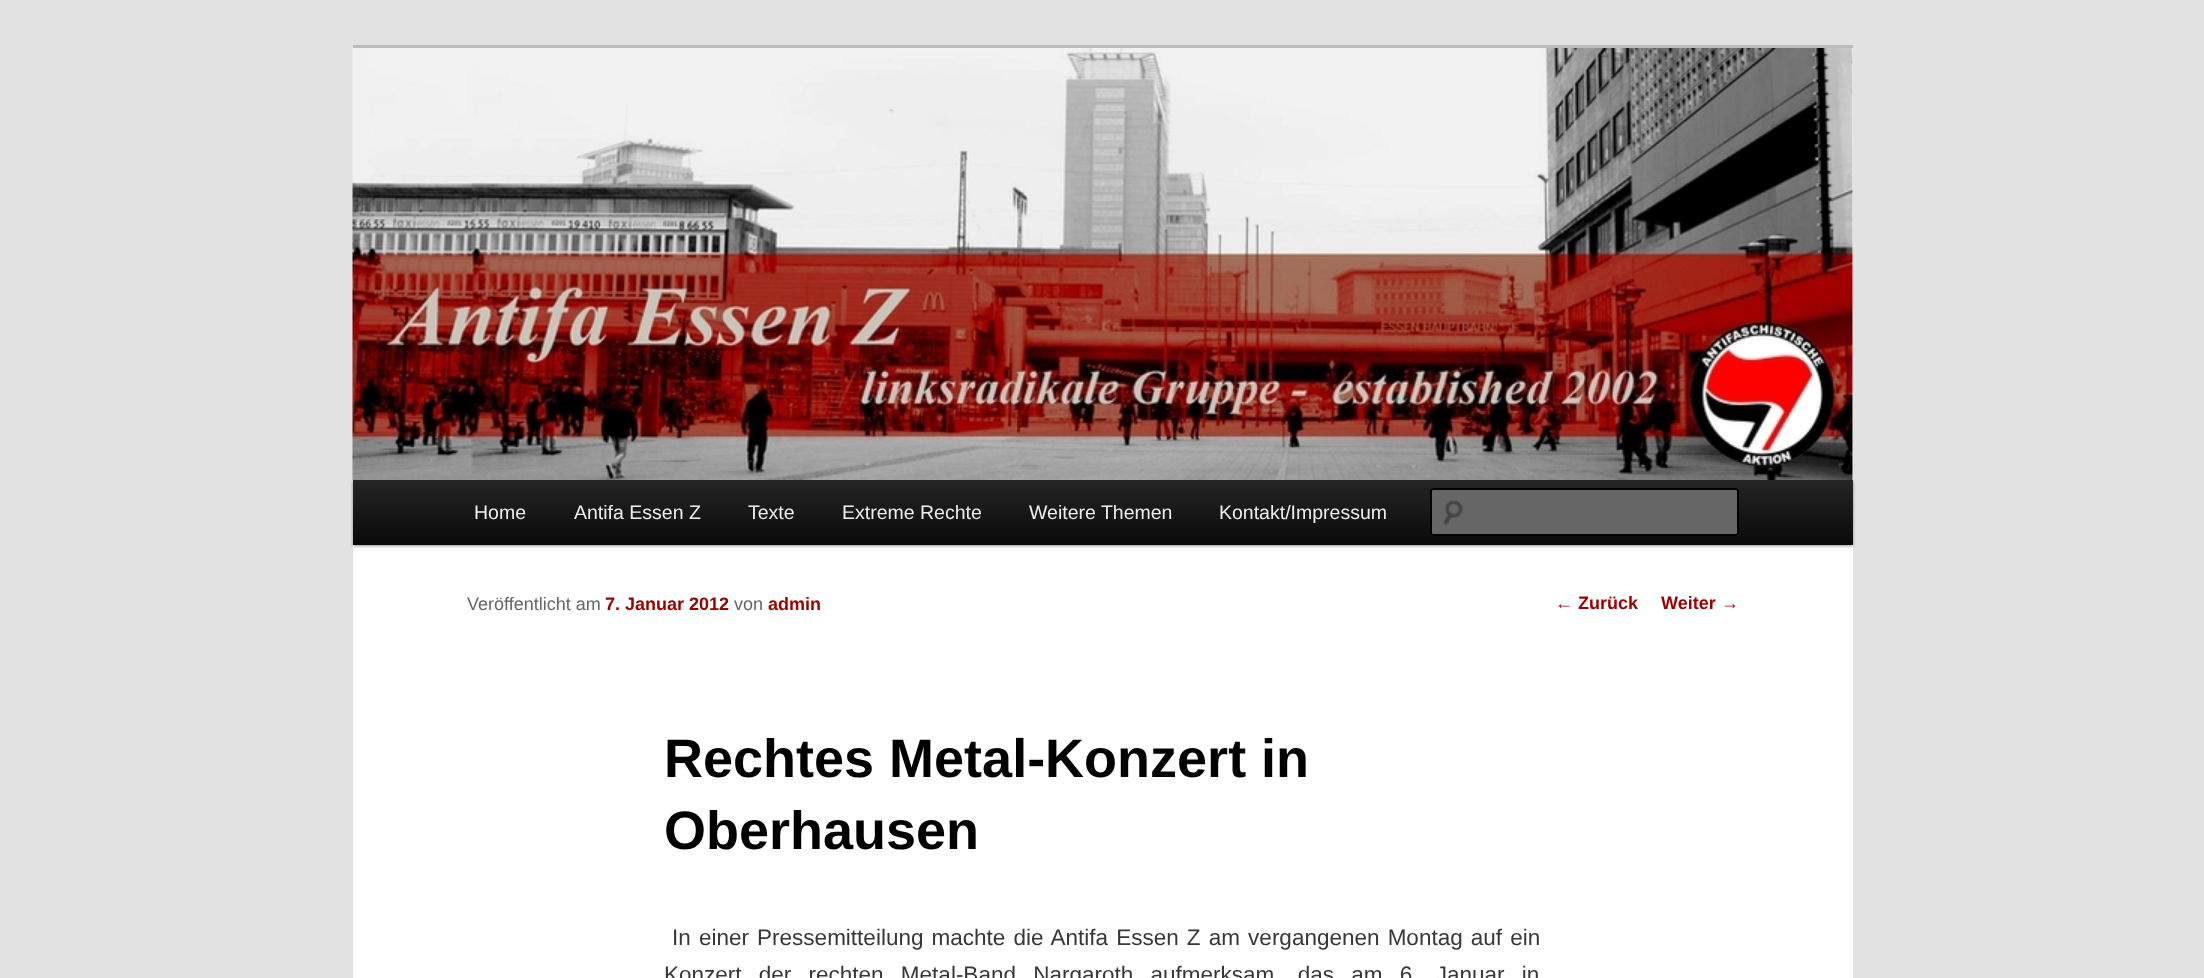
<!DOCTYPE html>
<meta charset="utf-8">
<style>body { margin: 0 } canvas { display: block }</style>
<canvas id="canvas" width="2204" height="978"></canvas>
<img id="img1" src="images/1.png" hidden>
<img id="img2" src="images/2.png" hidden>
<script>
window.onload = function () {
    const canvas = document.getElementById('canvas');
    const context = canvas.getContext('2d');
    context.miterLimit = 4;
    context.fontKerning = 'normal';
    let gradient;

    context.fillStyle = 'rgb(226, 226, 226)';
    context.fillRect(0, 0, 2204, 978);
    context.fillStyle = 'rgb(255, 255, 255)';
    context.fillRect(353, 48, 1500, 930);
    context.fillStyle = 'rgb(187, 187, 187)';
    context.fillRect(353, 45, 1500, 3);
    context.fillStyle = 'rgba(0, 0, 0, 0.4)';
    context.filter = 'blur(1.5px)';
    context.beginPath();
    context.rect(353, 482, 1500, 64);
    context.fill();
    context.filter = 'none';
    context.drawImage(document.getElementById('img1'), 352, 48, 1501, 432);
    gradient = context.createLinearGradient(1103, 480, 1103, 545);
    gradient.addColorStop(0, 'rgb(37, 37, 37)');
    gradient.addColorStop(1, 'rgb(10, 10, 10)');
    context.fillStyle = gradient;
    context.fillRect(353, 480, 1500, 65);
    context.fillStyle = 'rgb(102, 102, 102)';
    context.beginPath();
    context.roundRect(1430, 488, 309, 48, 3);
    context.fill();
    context.drawImage(document.getElementById('img2'), 1443, 500, 20, 25);
    context.fillStyle = 'rgb(92, 92, 92)';
    context.beginPath();
    context.moveTo(1432, 490);
    context.lineTo(1736, 490);
    context.lineTo(1737, 492);
    context.bezierCurveTo(1737, 491, 1737, 489, 1736, 489);
    context.lineTo(1432, 489);
    context.lineTo(1431, 490);
    context.lineTo(1431, 492);
    context.closePath();
    context.fill();
    context.beginPath();
    context.roundRect(1431, 489, 307, 46, 2);
    context.strokeStyle = 'rgb(0, 0, 0)';
    context.lineWidth = 2;
    context.stroke();
    context.font = '19.5px Liberation Sans';
    context.fillStyle = 'rgb(238, 238, 238)';
    context.fillText('Home', 474, 519);
    context.fillText('Antifa Essen Z', 574, 519);
    context.fillText('Texte', 748, 519);
    context.fillText('Extreme Rechte', 842, 519);
    context.fillText('Weitere Themen', 1029, 519);
    context.fillText('Kontakt/Impressum', 1219, 519);
    context.font = '18px Liberation Sans';
    context.fillStyle = 'rgb(102, 102, 102)';
    context.fillText('Veröffentlicht am', 467, 610);
    context.font = 'bold 18px Liberation Sans';
    context.fillStyle = 'rgb(153, 0, 0)';
    context.fillText('7. Januar 2012', 605, 610);
    context.font = '18px Liberation Sans';
    context.fillStyle = 'rgb(102, 102, 102)';
    context.fillText('von', 734, 610);
    context.font = 'bold 18px Liberation Sans';
    context.fillStyle = 'rgb(153, 0, 0)';
    context.fillText('admin', 768, 610);
    context.font = 'bold 54px Liberation Sans';
    context.fillStyle = 'rgb(0, 0, 0)';
    context.fillText('Rechtes Metal-Konzert in', 664, 777);
    context.fillText('Oberhausen', 664, 849);
    context.wordSpacing = '1.9px';
    context.font = '22.5px Liberation Sans';
    context.fillStyle = 'rgb(55, 55, 55)';
    context.fillText('In einer Pressemitteilung machte die Antifa Essen Z am vergangenen Montag auf ein', 672, 945);
    context.wordSpacing = '11px';
    context.fillText('Konzert der rechten Metal-Band Nargaroth aufmerksam, das am 6. Januar in', 664, 982);
    context.wordSpacing = '0px';
    context.font = '18px Liberation Sans';
    context.fillStyle = 'rgb(153, 0, 0)';
    context.fillText('←', 1555, 609);
    context.font = 'bold 18px Liberation Sans';
    context.fillText('Zurück', 1578, 609);
    context.fillText('Weiter', 1661, 609);
    context.font = '18px Liberation Sans';
    context.fillText('→', 1721, 609);
};
</script>
